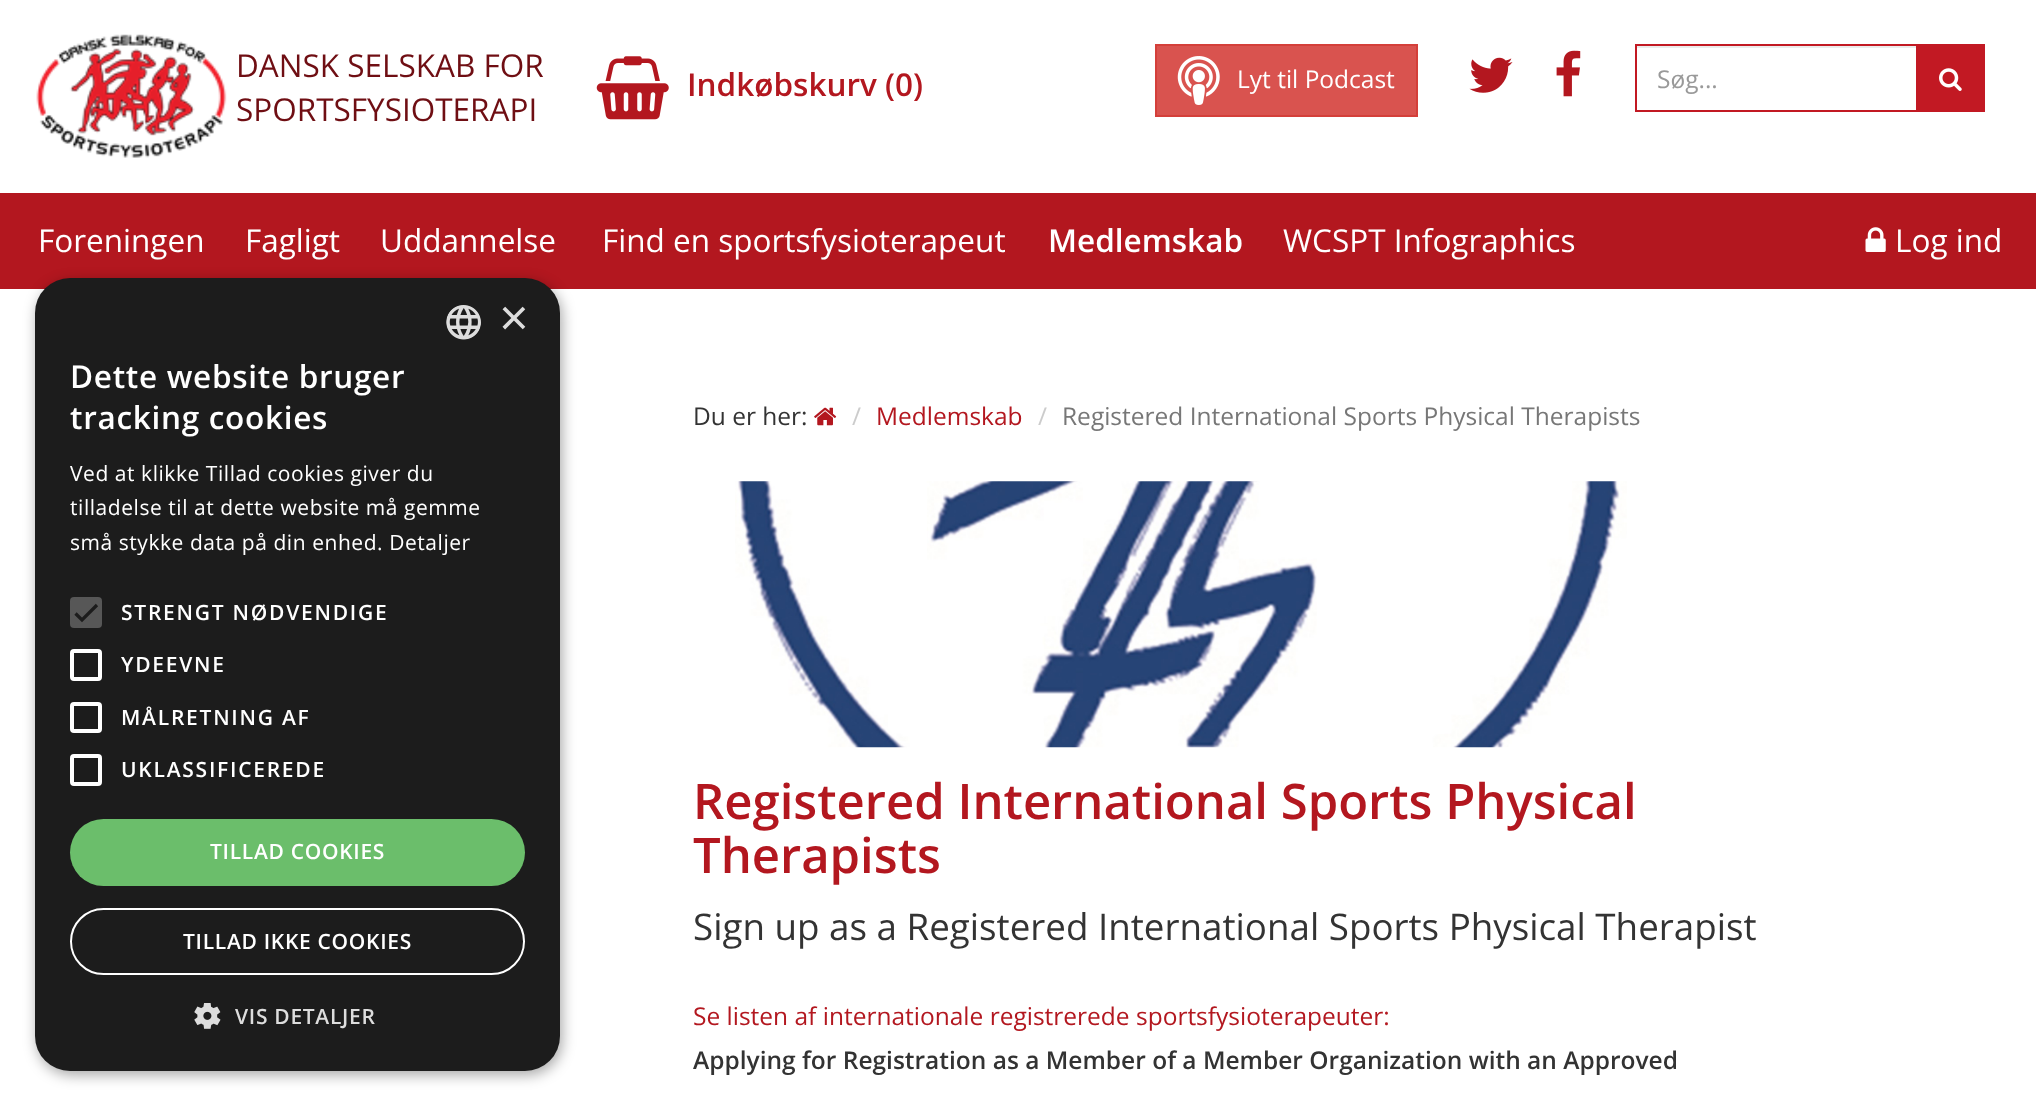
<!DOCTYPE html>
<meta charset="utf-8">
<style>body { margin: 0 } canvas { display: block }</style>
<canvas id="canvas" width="2036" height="1105"></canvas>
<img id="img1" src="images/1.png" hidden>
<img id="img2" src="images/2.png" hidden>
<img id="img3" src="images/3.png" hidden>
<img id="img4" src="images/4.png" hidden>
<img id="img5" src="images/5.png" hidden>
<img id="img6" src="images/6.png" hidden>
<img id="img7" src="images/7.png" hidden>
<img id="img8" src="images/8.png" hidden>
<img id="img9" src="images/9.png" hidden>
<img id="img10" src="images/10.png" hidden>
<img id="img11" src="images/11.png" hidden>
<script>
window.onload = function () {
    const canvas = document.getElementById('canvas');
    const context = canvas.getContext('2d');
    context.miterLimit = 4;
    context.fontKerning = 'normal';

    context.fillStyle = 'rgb(255, 255, 255)';
    context.fillRect(0, 0, 2036, 1105);
    context.drawImage(document.getElementById('img1'), 36, 34, 191, 124);
    context.drawImage(document.getElementById('img2'), 596, 56, 73, 64);
    context.fillStyle = 'rgb(217, 83, 79)';
    context.beginPath();
    context.rect(1156, 45, 261, 71);
    context.fill();
    context.strokeStyle = 'rgb(212, 63, 58)';
    context.lineWidth = 2;
    context.stroke();
    context.drawImage(document.getElementById('img3'), 1177, 56, 43, 49);
    context.drawImage(document.getElementById('img4'), 1469, 57, 44, 36);
    context.drawImage(document.getElementById('img5'), 1556, 50, 25, 47);
    context.fillStyle = 'rgb(236, 236, 236)';
    context.fillRect(1636, 46, 280, 2);
    context.strokeStyle = 'rgb(194, 25, 35)';
    context.strokeRect(1636, 45, 281, 66);
    context.fillStyle = 'rgb(194, 25, 35)';
    context.fillRect(1918, 44, 67, 68);
    context.drawImage(document.getElementById('img6'), 1939, 68, 23, 23);
    context.fillStyle = 'rgb(179, 23, 31)';
    context.fillRect(0, 193, 2036, 96);
    context.drawImage(document.getElementById('img7'), 1865, 227, 21, 25);
    context.fillStyle = 'rgba(0, 0, 0, 0.35)';
    context.filter = 'blur(7px)';
    context.beginPath();
    context.roundRect(37, 282, 525, 793, 35);
    context.fill();
    context.filter = 'none';
    context.fillStyle = 'rgb(28, 28, 28)';
    context.beginPath();
    context.roundRect(35, 278, 525, 793, 35);
    context.fill();
    context.drawImage(document.getElementById('img8'), 446, 305, 35, 35);
    context.fillStyle = 'rgb(87, 87, 87)';
    context.beginPath();
    context.roundRect(70, 597, 32, 31, 4);
    context.fill();
    context.beginPath();
    context.moveTo(75.5, 613.5);
    context.lineTo(82, 620);
    context.lineTo(97, 605);
    context.strokeStyle = 'rgb(28, 28, 28)';
    context.lineWidth = 3.2;
    context.stroke();
    context.beginPath();
    context.roundRect(72, 651, 28, 28, 2);
    context.strokeStyle = 'rgb(255, 255, 255)';
    context.lineWidth = 4;
    context.stroke();
    context.beginPath();
    context.roundRect(72, 704, 28, 27, 2);
    context.stroke();
    context.beginPath();
    context.roundRect(72, 756, 28, 28, 2);
    context.stroke();
    context.fillStyle = 'rgb(107, 190, 107)';
    context.beginPath();
    context.roundRect(70, 819, 455, 67, 33.5);
    context.fill();
    context.beginPath();
    context.roundRect(71, 909, 453, 65, 32.5);
    context.lineWidth = 2;
    context.stroke();
    context.drawImage(document.getElementById('img9'), 194, 1003, 27, 26);
    context.drawImage(document.getElementById('img10'), 814, 407, 23, 19);
    context.drawImage(document.getElementById('img11'), 735, 481, 892, 267);
    context.font = '31.5px Open Sans';
    context.fillStyle = 'rgb(111, 14, 19)';
    context.fillText('DANSK SELSKAB FOR', 236, 77);
    context.fillText('SPORTSFYSIOTERAPI', 236, 121);
    context.font = '600 31.5px Open Sans';
    context.fillStyle = 'rgb(179, 23, 31)';
    context.fillText('Indkøbskurv (0)', 687, 96);
    context.font = '24.5px Open Sans';
    context.fillStyle = 'rgb(255, 255, 255)';
    context.fillText('Lyt til Podcast', 1237, 88);
    context.fillStyle = 'rgb(153, 153, 153)';
    context.fillText('Søg...', 1657, 88);
    context.font = '31.5px Open Sans';
    context.fillStyle = 'rgb(255, 255, 255)';
    context.fillText('Foreningen', 38, 252);
    context.fillText('Fagligt', 245, 252);
    context.fillText('Uddannelse', 380, 252);
    context.fillText('Find en sportsfysioterapeut', 602, 252);
    context.font = '600 31.5px Open Sans';
    context.fillText('Medlemskab', 1048, 252);
    context.font = '31.5px Open Sans';
    context.fillText('WCSPT Infographics', 1283, 252);
    context.fillText('Log ind', 1895, 252);
    context.font = '51px Liberation Sans';
    context.fillStyle = 'rgb(221, 221, 221)';
    context.fillText('×', 499, 335);
    context.letterSpacing = '0.7px';
    context.font = '600 31.5px Open Sans';
    context.fillStyle = 'rgb(255, 255, 255)';
    context.fillText('Dette website bruger', 70, 388);
    context.fillText('tracking cookies', 70, 429);
    context.letterSpacing = '0.55px';
    context.font = '21px Open Sans';
    context.fillText('Ved at klikke Tillad cookies giver du', 70, 481);
    context.fillText('tilladelse til at dette website må gemme', 70, 515);
    context.fillText('små stykke data på din enhed. Detaljer', 70, 550);
    context.letterSpacing = '1.75px';
    context.font = '600 21px Open Sans';
    context.fillText('STRENGT NØDVENDIGE', 121, 620);
    context.fillText('YDEEVNE', 121, 672);
    context.fillText('MÅLRETNING AF', 121, 725);
    context.fillText('UKLASSIFICEREDE', 121, 777);
    context.letterSpacing = '0.7px';
    context.fillText('TILLAD COOKIES', 210, 859);
    context.fillText('TILLAD IKKE COOKIES', 183, 949);
    context.fillStyle = 'rgb(221, 221, 221)';
    context.fillText('VIS DETALJER', 235, 1024);
    context.letterSpacing = '0px';
    context.font = '24.5px Open Sans';
    context.fillStyle = 'rgb(51, 51, 51)';
    context.fillText('Du er her:', 693, 425);
    context.fillStyle = 'rgb(204, 204, 204)';
    context.fillText('/', 852, 425);
    context.fillStyle = 'rgb(179, 23, 31)';
    context.fillText('Medlemskab', 876, 425);
    context.fillStyle = 'rgb(204, 204, 204)';
    context.fillText('/', 1038, 425);
    context.fillStyle = 'rgb(119, 119, 119)';
    context.fillText('Registered International Sports Physical Therapists', 1062, 425);
    context.font = '600 49px Open Sans';
    context.fillStyle = 'rgb(179, 23, 31)';
    context.fillText('Registered International Sports Physical', 693, 819);
    context.fillText('Therapists', 693, 873);
    context.font = '36.75px Open Sans';
    context.fillStyle = 'rgb(51, 51, 51)';
    context.fillText('Sign up as a Registered International Sports Physical Therapist', 693, 940);
    context.font = '24.5px Open Sans';
    context.fillStyle = 'rgb(179, 23, 31)';
    context.fillText('Se listen af internationale registrerede sportsfysioterapeuter:', 693, 1025);
    context.font = '600 24.5px Open Sans';
    context.fillStyle = 'rgb(51, 51, 51)';
    context.fillText('Applying for Registration as a Member of a Member Organization with an Approved', 693, 1069);
};
</script>
